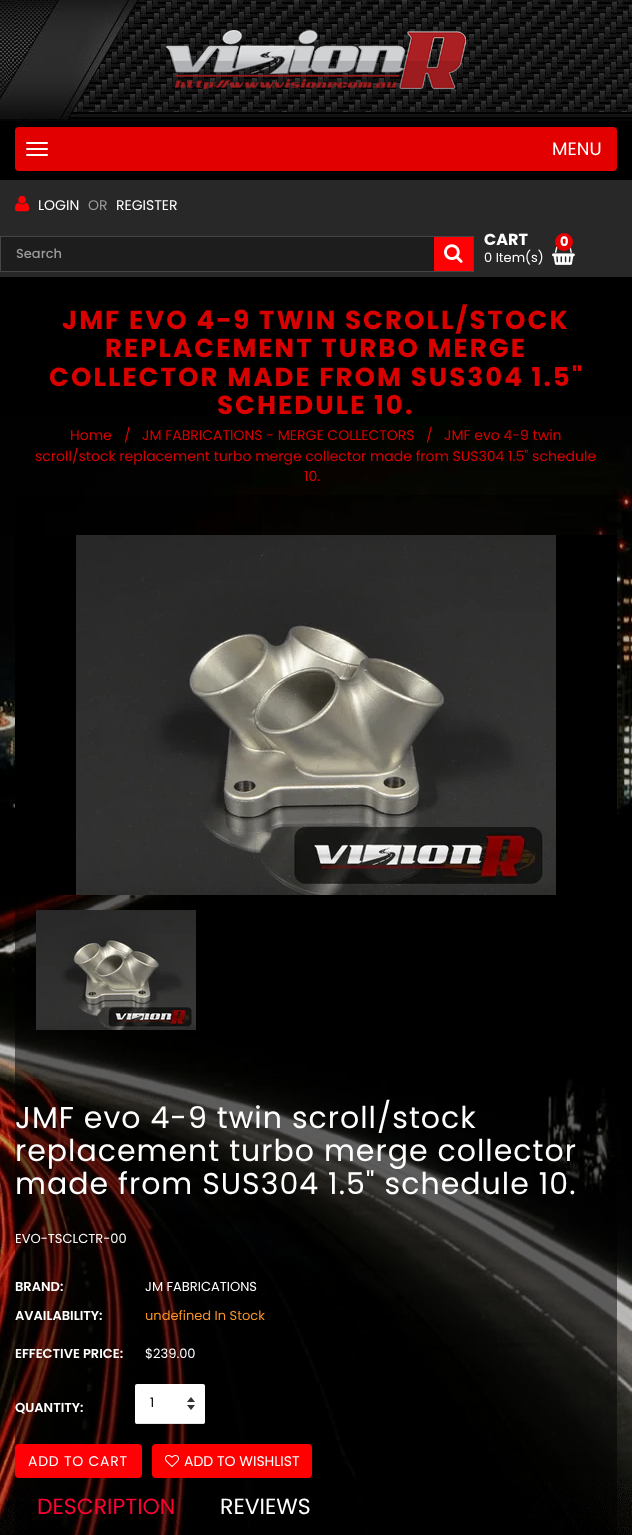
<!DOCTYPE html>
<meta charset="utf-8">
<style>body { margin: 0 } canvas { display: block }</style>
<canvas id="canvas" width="632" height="1535"></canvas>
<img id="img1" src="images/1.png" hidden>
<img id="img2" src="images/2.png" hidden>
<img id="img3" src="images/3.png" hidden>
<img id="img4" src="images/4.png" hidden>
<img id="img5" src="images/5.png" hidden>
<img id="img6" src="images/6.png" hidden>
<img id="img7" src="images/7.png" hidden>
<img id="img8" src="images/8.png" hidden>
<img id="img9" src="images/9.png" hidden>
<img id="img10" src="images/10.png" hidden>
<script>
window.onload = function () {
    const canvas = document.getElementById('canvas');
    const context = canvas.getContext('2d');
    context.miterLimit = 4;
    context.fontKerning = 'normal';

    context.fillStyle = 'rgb(0, 0, 0)';
    context.fillRect(0, 0, 632, 1535);
    context.drawImage(document.getElementById('img1'), 0, 0, 632, 121);
    context.drawImage(document.getElementById('img2'), 166, 30, 300, 59);
    context.fillStyle = 'rgb(227, 0, 0)';
    context.beginPath();
    context.roundRect(15, 127, 602, 44, 4);
    context.fill();
    context.fillStyle = 'rgb(255, 255, 255)';
    context.beginPath();
    context.roundRect(26, 142, 22, 2, 1);
    context.fill();
    context.beginPath();
    context.roundRect(26, 148, 22, 2, 1);
    context.fill();
    context.beginPath();
    context.roundRect(26, 154, 22, 2, 1);
    context.fill();
    context.fillStyle = 'rgb(40, 40, 40)';
    context.fillRect(0, 180, 632, 97);
    context.drawImage(document.getElementById('img3'), 15, 195, 15, 17);
    context.fillStyle = 'rgb(29, 29, 29)';
    context.fillRect(1, 237, 433, 34);
    context.strokeStyle = 'rgb(69, 69, 69)';
    context.strokeRect(0.5, 236.5, 473, 35);
    context.fillStyle = 'rgb(27, 27, 27)';
    context.beginPath();
    context.moveTo(5, 238);
    context.lineTo(469, 238);
    context.bezierCurveTo(471, 238, 473, 240, 473, 242);
    context.bezierCurveTo(473, 239, 472, 237, 469, 237);
    context.lineTo(5, 237);
    context.bezierCurveTo(2, 237, 1, 239, 1, 242);
    context.bezierCurveTo(1, 240, 3, 238, 5, 238);
    context.closePath();
    context.fill();
    context.fillStyle = 'rgb(255, 0, 4)';
    context.fillRect(434, 237, 39, 34);
    context.drawImage(document.getElementById('img4'), 444, 244, 19, 19);
    context.drawImage(document.getElementById('img5'), 552, 246, 23, 19);
    context.fillStyle = 'rgb(228, 0, 0)';
    context.beginPath();
    context.arc(564, 242, 9, 0, 2 * Math.PI);
    context.fill();
    context.drawImage(document.getElementById('img6'), 0, 416, 632, 1119);
    context.fillStyle = 'rgba(0, 0, 0, 0.5)';
    context.fillRect(15, 495, 602, 1040);
    context.fillStyle = 'rgb(0, 0, 0)';
    context.fillRect(15, 535, 602, 360);
    context.drawImage(document.getElementById('img7'), 76, 535, 480, 360);
    context.drawImage(document.getElementById('img8'), 36, 910, 160, 120);
    context.fillStyle = 'rgb(255, 255, 255)';
    context.beginPath();
    context.roundRect(135, 1384, 70, 40, 2);
    context.fill();
    context.drawImage(document.getElementById('img9'), 187, 1397, 8, 13);
    context.fillStyle = 'rgb(228, 228, 228)';
    context.fillRect(136, 1423, 68, 1);
    context.fillStyle = 'rgb(255, 0, 6)';
    context.beginPath();
    context.roundRect(15, 1444, 127, 34, 4);
    context.fill();
    context.fillStyle = 'rgb(255, 0, 0)';
    context.beginPath();
    context.roundRect(152, 1444, 160, 34, 4);
    context.fill();
    context.drawImage(document.getElementById('img10'), 165, 1455, 14, 12);
    context.font = '18px Poppins';
    context.fillStyle = 'rgb(255, 255, 255)';
    context.fillText('MENU', 552, 155);
    context.font = '14px Poppins';
    context.fillText('LOGIN', 38, 210);
    context.fillStyle = 'rgb(154, 154, 154)';
    context.fillText('OR', 88, 210);
    context.fillStyle = 'rgb(255, 255, 255)';
    context.fillText('REGISTER', 116, 210);
    context.font = '500 13px Poppins';
    context.fillStyle = 'rgb(154, 154, 154)';
    context.fillText('Search', 16, 258);
    context.font = 'bold 16px Poppins';
    context.fillStyle = 'rgb(255, 255, 255)';
    context.fillText('CART', 484, 245);
    context.font = 'bold 13px Poppins';
    context.fillText('0', 560, 246);
    context.font = '13px Poppins';
    context.fillText('0 Item(s)', 484, 262);
    context.letterSpacing = '2.1px';
    context.font = 'bold 26px Poppins';
    context.fillStyle = 'rgb(217, 0, 0)';
    context.fillText('JMF EVO 4-9 TWIN SCROLL/STOCK', 62, 329);
    context.fillText('REPLACEMENT TURBO MERGE', 105, 357);
    context.fillText('COLLECTOR MADE FROM SUS304 1.5"', 49, 386);
    context.fillText('SCHEDULE 10.', 217, 414);
    context.letterSpacing = '0px';
    context.font = '14px Poppins';
    context.fillText('Home', 70, 440);
    context.fillText('/', 124, 440);
    context.fillText('JM FABRICATIONS - MERGE COLLECTORS', 142, 440);
    context.fillText('/', 426, 440);
    context.fillText('JMF evo 4-9 twin', 444, 440);
    context.fillText('scroll/stock replacement turbo merge collector made from SUS304 1.5" schedule', 35, 461);
    context.fillText('10.', 304, 481);
    context.letterSpacing = '1px';
    context.font = '30px Poppins';
    context.fillStyle = 'rgb(255, 255, 255)';
    context.fillText('JMF evo 4-9 twin scroll/stock', 15, 1128);
    context.fillText('replacement turbo merge collector', 15, 1161);
    context.fillText('made from SUS304 1.5" schedule 10.', 15, 1194);
    context.letterSpacing = '0px';
    context.font = '13px Poppins';
    context.fillText('EVO-TSCLCTR-00', 15, 1243);
    context.font = '600 13px Poppins';
    context.fillText('BRAND:', 15, 1291);
    context.font = '13px Poppins';
    context.fillText('JM FABRICATIONS', 145, 1291);
    context.font = '600 13px Poppins';
    context.fillText('AVAILABILITY:', 15, 1320);
    context.font = '13px Poppins';
    context.fillStyle = 'rgb(250, 147, 36)';
    context.fillText('undefined In Stock', 145, 1320);
    context.font = '600 13px Poppins';
    context.fillStyle = 'rgb(255, 255, 255)';
    context.fillText('EFFECTIVE PRICE:', 15, 1358);
    context.font = '13px Poppins';
    context.fillText('$239.00', 145, 1358);
    context.font = '600 13px Poppins';
    context.fillText('QUANTITY:', 15, 1412);
    context.font = '13px Poppins';
    context.fillStyle = 'rgb(0, 0, 0)';
    context.fillText('1', 150, 1407);
    context.letterSpacing = '0.75px';
    context.font = '14px Poppins';
    context.fillStyle = 'rgb(255, 255, 255)';
    context.fillText('ADD TO CART', 28, 1466);
    context.letterSpacing = '0px';
    context.fillText('ADD TO WISHLIST', 184, 1466);
    context.font = '22px Poppins';
    context.fillStyle = 'rgb(255, 0, 50)';
    context.fillText('DESCRIPTION', 37, 1514);
    context.fillStyle = 'rgb(255, 255, 255)';
    context.fillText('REVIEWS', 220, 1514);
};
</script>
